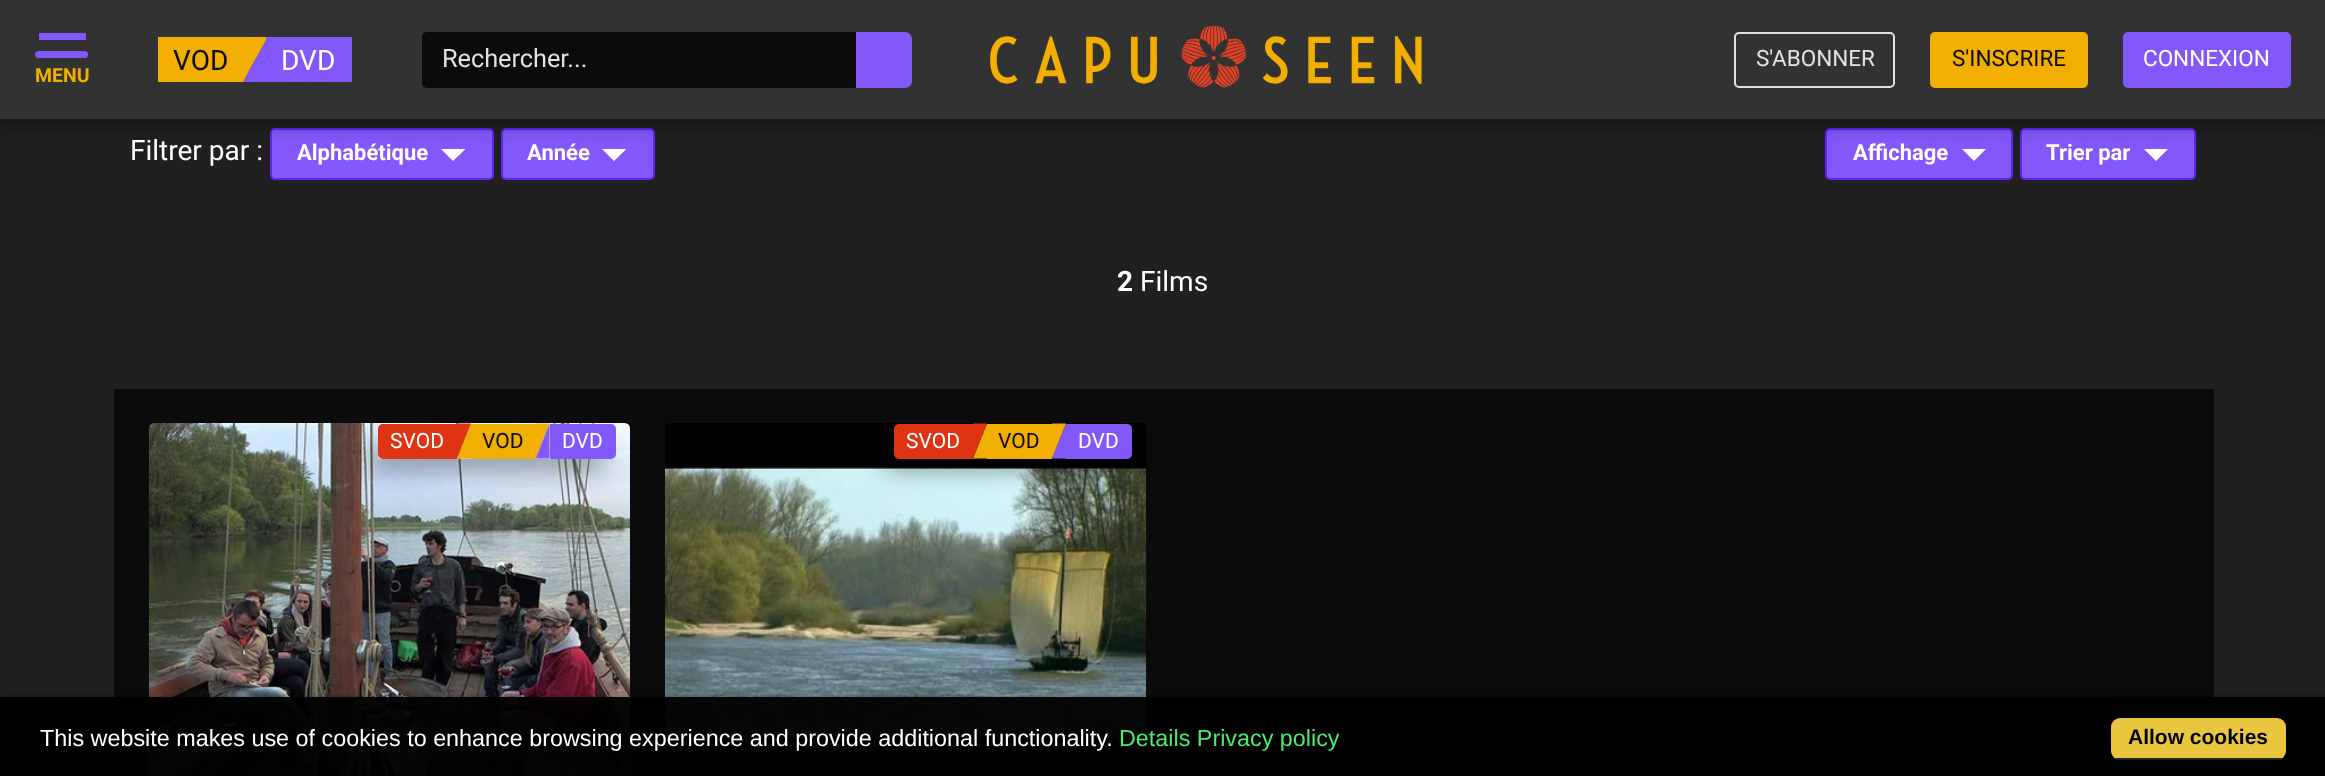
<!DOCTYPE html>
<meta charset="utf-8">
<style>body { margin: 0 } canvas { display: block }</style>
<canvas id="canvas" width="2325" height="776"></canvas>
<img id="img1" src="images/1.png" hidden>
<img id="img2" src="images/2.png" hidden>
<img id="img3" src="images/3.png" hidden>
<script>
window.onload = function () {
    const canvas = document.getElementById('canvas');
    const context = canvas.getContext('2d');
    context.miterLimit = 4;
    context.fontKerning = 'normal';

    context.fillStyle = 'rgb(32, 32, 32)';
    context.fillRect(0, 0, 2325, 776);
    context.fillStyle = 'rgb(10, 10, 10)';
    context.fillRect(2214, 709, 89, 67);
    context.fillStyle = 'rgb(130, 88, 250)';
    context.beginPath();
    context.roundRect(271, 129, 222, 50, 4);
    context.fill();
    context.strokeStyle = 'rgb(93, 38, 249)';
    context.lineWidth = 2;
    context.stroke();
    context.fillStyle = 'rgb(255, 255, 255)';
    context.beginPath();
    context.moveTo(441, 149);
    context.lineTo(465.5, 149);
    context.lineTo(453, 161);
    context.closePath();
    context.fill();
    context.fillStyle = 'rgb(130, 88, 250)';
    context.beginPath();
    context.roundRect(502, 129, 152, 50, 4);
    context.fill();
    context.stroke();
    context.fillStyle = 'rgb(255, 255, 255)';
    context.beginPath();
    context.moveTo(602, 149);
    context.lineTo(626.5, 149);
    context.lineTo(614, 161);
    context.closePath();
    context.fill();
    context.fillStyle = 'rgb(130, 88, 250)';
    context.beginPath();
    context.roundRect(1826, 129, 186, 50, 4);
    context.fill();
    context.stroke();
    context.fillStyle = 'rgb(255, 255, 255)';
    context.beginPath();
    context.moveTo(1962, 149);
    context.lineTo(1986, 149);
    context.lineTo(1974, 161);
    context.closePath();
    context.fill();
    context.fillStyle = 'rgb(130, 88, 250)';
    context.beginPath();
    context.roundRect(2021, 129, 174, 50, 4);
    context.fill();
    context.stroke();
    context.fillStyle = 'rgb(255, 255, 255)';
    context.beginPath();
    context.moveTo(2144, 149);
    context.lineTo(2168, 149);
    context.lineTo(2156, 161);
    context.closePath();
    context.fill();
    context.fillStyle = 'rgba(0, 0, 0, 0.35)';
    context.filter = 'blur(8px)';
    context.beginPath();
    context.rect(-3, 0, 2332, 126);
    context.fill();
    context.filter = 'none';
    context.fillStyle = 'rgb(50, 50, 50)';
    context.fillRect(0, 0, 2325, 119);
    context.fillStyle = 'rgb(242, 175, 1)';
    context.fillRect(158, 37, 87, 45);
    context.beginPath();
    context.moveTo(243, 82);
    context.lineTo(243, 37);
    context.lineTo(268, 37);
    context.closePath();
    context.fill();
    context.fillStyle = 'rgb(130, 88, 250)';
    context.fillRect(266, 37, 86, 45);
    context.beginPath();
    context.moveTo(268, 37);
    context.lineTo(268, 82);
    context.lineTo(243, 82);
    context.closePath();
    context.fill();
    context.fillStyle = 'rgb(11, 11, 11)';
    context.beginPath();
    context.roundRect(422, 32, 434, 56, [5, 0, 0, 5]);
    context.fill();
    context.fillStyle = 'rgb(130, 88, 250)';
    context.beginPath();
    context.roundRect(856, 32, 56, 56, [0, 7, 7, 0]);
    context.fill();
    context.fillRect(39, 33, 47, 7);
    context.beginPath();
    context.roundRect(35, 51, 53, 7, 3.5);
    context.fill();
    context.drawImage(document.getElementById('img1'), 990, 25, 432, 63);
    context.beginPath();
    context.roundRect(1735, 33, 159, 54, 4);
    context.strokeStyle = 'rgb(226, 226, 226)';
    context.stroke();
    context.fillStyle = 'rgb(242, 175, 1)';
    context.beginPath();
    context.roundRect(1931, 33, 156, 54, 4);
    context.fill();
    context.strokeStyle = 'rgb(242, 175, 1)';
    context.stroke();
    context.fillStyle = 'rgb(130, 88, 250)';
    context.beginPath();
    context.roundRect(2124, 33, 166, 54, 4);
    context.fill();
    context.strokeStyle = 'rgb(130, 88, 250)';
    context.stroke();
    context.fillStyle = 'rgb(11, 11, 11)';
    context.fillRect(114, 389, 2100, 387);
    context.fillStyle = 'rgb(3, 3, 3)';
    context.fillRect(2144, 709, 70, 67);
    context.drawImage(document.getElementById('img2'), 148, 423, 482, 353);
    context.save();
    context.beginPath();
    context.moveTo(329, 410);
    context.lineTo(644, 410);
    context.lineTo(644, 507);
    context.lineTo(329, 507);
    context.closePath();
    context.moveTo(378, 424);
    context.lineTo(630, 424);
    context.lineTo(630, 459);
    context.lineTo(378, 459);
    context.closePath();
    context.clip('evenodd');
    context.fillStyle = 'rgba(0, 0, 0, 0.53)';
    context.filter = 'blur(13px)';
    context.beginPath();
    context.rect(369, 450, 235, 17);
    context.fill();
    context.filter = 'none';
    context.restore();
    context.fillStyle = 'rgb(222, 52, 20)';
    context.beginPath();
    context.roundRect(378, 424, 79, 35, [5, 0, 0, 5]);
    context.fill();
    context.fillStyle = 'rgb(242, 175, 1)';
    context.beginPath();
    context.moveTo(471, 423.5);
    context.lineTo(471, 458.5);
    context.lineTo(457, 458.5);
    context.closePath();
    context.fill();
    context.fillStyle = 'rgb(222, 52, 20)';
    context.beginPath();
    context.moveTo(457, 458.5);
    context.lineTo(457, 423.5);
    context.lineTo(471, 423.5);
    context.closePath();
    context.fill();
    context.fillStyle = 'rgb(130, 88, 250)';
    context.beginPath();
    context.moveTo(549.5, 423.5);
    context.lineTo(549.5, 458.5);
    context.lineTo(535.5, 458.5);
    context.closePath();
    context.fill();
    context.fillStyle = 'rgb(242, 175, 1)';
    context.fillRect(471, 424, 65, 35);
    context.beginPath();
    context.moveTo(535.5, 458.5);
    context.lineTo(535.5, 423.5);
    context.lineTo(549.5, 423.5);
    context.closePath();
    context.fill();
    context.fillStyle = 'rgb(130, 88, 250)';
    context.beginPath();
    context.roundRect(550, 424, 66, 35, [0, 5, 5, 0]);
    context.fill();
    context.drawImage(document.getElementById('img3'), 665, 423, 482, 353);
    context.save();
    context.beginPath();
    context.moveTo(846, 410);
    context.lineTo(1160, 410);
    context.lineTo(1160, 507);
    context.lineTo(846, 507);
    context.closePath();
    context.moveTo(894, 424);
    context.lineTo(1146, 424);
    context.lineTo(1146, 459);
    context.lineTo(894, 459);
    context.closePath();
    context.clip('evenodd');
    context.fillStyle = 'rgba(0, 0, 0, 0.53)';
    context.filter = 'blur(13px)';
    context.beginPath();
    context.rect(886, 450, 234, 17);
    context.fill();
    context.filter = 'none';
    context.restore();
    context.fillStyle = 'rgb(222, 52, 20)';
    context.beginPath();
    context.roundRect(894, 424, 79, 35, [5, 0, 0, 5]);
    context.fill();
    context.fillStyle = 'rgb(242, 175, 1)';
    context.beginPath();
    context.moveTo(987, 423.5);
    context.lineTo(987, 458.5);
    context.lineTo(973, 458.5);
    context.closePath();
    context.fill();
    context.fillStyle = 'rgb(222, 52, 20)';
    context.beginPath();
    context.moveTo(973, 458.5);
    context.lineTo(973, 423.5);
    context.lineTo(987, 423.5);
    context.closePath();
    context.fill();
    context.fillStyle = 'rgb(242, 175, 1)';
    context.fillRect(987, 424, 65, 35);
    context.fillStyle = 'rgb(130, 88, 250)';
    context.beginPath();
    context.moveTo(1066, 423.5);
    context.lineTo(1066, 458.5);
    context.lineTo(1052, 458.5);
    context.closePath();
    context.fill();
    context.fillStyle = 'rgb(242, 175, 1)';
    context.beginPath();
    context.moveTo(1052, 458.5);
    context.lineTo(1052, 423.5);
    context.lineTo(1066, 423.5);
    context.closePath();
    context.fill();
    context.fillStyle = 'rgb(130, 88, 250)';
    context.beginPath();
    context.roundRect(1066, 424, 66, 35, [0, 5, 5, 0]);
    context.fill();
    context.save();
    context.beginPath();
    context.rect(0, 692, 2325, 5);
    context.clip();
    context.fillStyle = 'rgba(0, 0, 0, 0.6)';
    context.filter = 'blur(4.5px)';
    context.beginPath();
    context.rect(4, 700, 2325, 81);
    context.fill();
    context.filter = 'none';
    context.restore();
    context.fillStyle = 'rgba(0, 0, 0, 0.95)';
    context.fillRect(0, 697, 2325, 79);
    context.fillStyle = 'rgb(234, 197, 62)';
    context.beginPath();
    context.roundRect(2111, 718, 175, 42, 9);
    context.fill();
    context.fillStyle = 'rgb(34, 34, 34)';
    context.fillRect(2116, 758, 166, 2);
    context.font = '28px Roboto';
    context.fillStyle = 'rgb(11, 11, 11)';
    context.fillText('VOD', 173, 70);
    context.fillStyle = 'rgb(255, 255, 255)';
    context.fillText('DVD', 281, 70);
    context.font = '25.25px Roboto';
    context.fillStyle = 'rgb(226, 226, 226)';
    context.fillText('Rechercher...', 442, 67);
    context.font = 'bold 19.5px Roboto';
    context.fillStyle = 'rgb(242, 175, 1)';
    context.fillText('MENU', 35, 82);
    context.font = '22.5px Roboto';
    context.fillStyle = 'rgb(226, 226, 226)';
    context.fillText('S\'ABONNER', 1756, 66);
    context.fillStyle = 'rgb(11, 11, 11)';
    context.fillText('S\'INSCRIRE', 1952, 66);
    context.fillStyle = 'rgb(255, 255, 255)';
    context.fillText('CONNEXION', 2143, 66);
    context.font = '28px Roboto';
    context.fillText('Filtrer par :', 130, 160);
    context.font = 'bold 22px Roboto';
    context.fillText('Alphabétique', 297, 160);
    context.fillText('Année', 527, 160);
    context.fillText('Affichage', 1853, 160);
    context.fillText('Trier par', 2046, 160);
    context.font = 'bold 28px Roboto';
    context.fillText('2', 1117, 291);
    context.font = '28px Roboto';
    context.fillText('Films', 1140, 291);
    context.font = '21px Roboto';
    context.fillText('SVOD', 390, 448);
    context.fillStyle = 'rgb(11, 11, 11)';
    context.fillText('VOD', 482, 448);
    context.fillStyle = 'rgb(255, 255, 255)';
    context.fillText('DVD', 562, 448);
    context.fillText('SVOD', 906, 448);
    context.fillStyle = 'rgb(11, 11, 11)';
    context.fillText('VOD', 998, 448);
    context.fillStyle = 'rgb(255, 255, 255)';
    context.fillText('DVD', 1078, 448);
    context.font = '23.35px Liberation Sans';
    context.fillText('This website makes use of cookies to enhance browsing experience and provide additional functionality.', 40, 746);
    context.fillStyle = 'rgb(75, 236, 105)';
    context.fillText('Details Privacy policy', 1119, 746);
    context.font = 'bold 21px Liberation Sans';
    context.fillStyle = 'rgb(0, 0, 0)';
    context.fillText('Allow cookies', 2128, 744);
};
</script>
